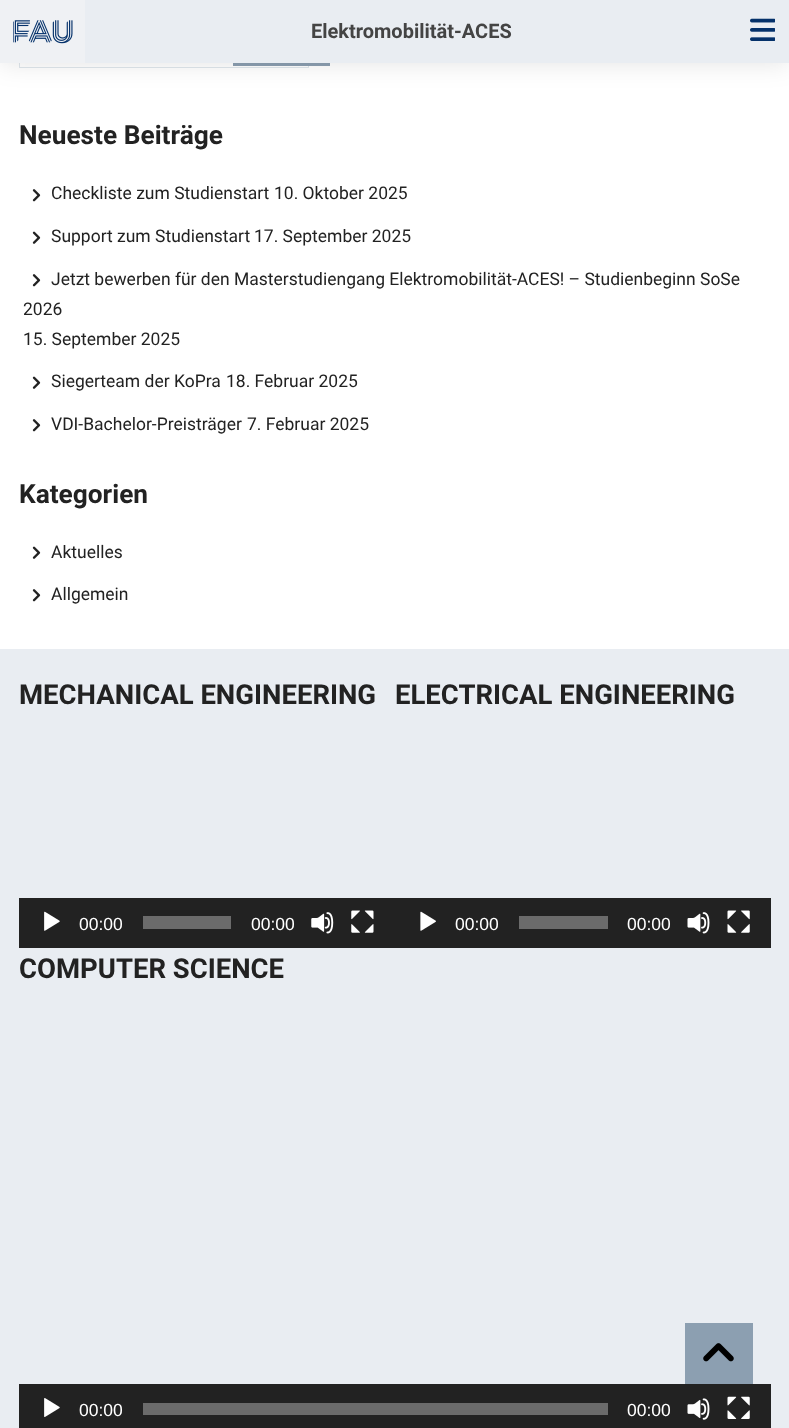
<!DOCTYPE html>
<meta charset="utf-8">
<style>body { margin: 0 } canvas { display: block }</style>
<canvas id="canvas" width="789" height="1428"></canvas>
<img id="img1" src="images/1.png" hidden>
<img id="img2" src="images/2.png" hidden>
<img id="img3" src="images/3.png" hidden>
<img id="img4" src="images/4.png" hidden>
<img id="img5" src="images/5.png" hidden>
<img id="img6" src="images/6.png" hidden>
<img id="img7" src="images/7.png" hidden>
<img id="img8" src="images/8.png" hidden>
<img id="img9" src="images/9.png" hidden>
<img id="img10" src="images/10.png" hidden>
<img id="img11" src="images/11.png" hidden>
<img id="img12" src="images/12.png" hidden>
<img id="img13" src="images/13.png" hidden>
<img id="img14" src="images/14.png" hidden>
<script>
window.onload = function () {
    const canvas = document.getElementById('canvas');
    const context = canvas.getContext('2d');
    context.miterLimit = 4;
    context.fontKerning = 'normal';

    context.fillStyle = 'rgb(255, 255, 255)';
    context.fillRect(0, 0, 789, 1428);
    context.strokeStyle = 'rgb(223, 230, 236)';
    context.strokeRect(19.5, 19.5, 289, 48);
    context.fillStyle = 'rgb(140, 159, 177)';
    context.fillRect(233, 63, 97, 3);
    context.fillStyle = 'rgba(0, 0, 0, 0.11)';
    context.filter = 'blur(13px)';
    context.beginPath();
    context.rect(0, 0, 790, 63);
    context.fill();
    context.filter = 'none';
    context.fillStyle = 'rgb(233, 237, 242)';
    context.fillRect(85, 0, 704, 63);
    context.fillStyle = 'rgb(239, 241, 244)';
    context.fillRect(0, 0, 85, 63);
    context.drawImage(document.getElementById('img1'), 13, 20, 60, 24);
    context.drawImage(document.getElementById('img2'), 750, 18, 25, 23);
    context.drawImage(document.getElementById('img3'), 32, 189, 9, 13);
    context.drawImage(document.getElementById('img4'), 32, 231, 9, 13);
    context.drawImage(document.getElementById('img3'), 32, 274, 9, 13);
    context.drawImage(document.getElementById('img4'), 32, 376, 9, 13);
    context.drawImage(document.getElementById('img3'), 32, 419, 9, 13);
    context.drawImage(document.getElementById('img4'), 32, 546, 9, 13);
    context.drawImage(document.getElementById('img3'), 32, 589, 9, 13);
    context.fillStyle = 'rgb(233, 237, 242)';
    context.fillRect(0, 649, 789, 779);
    context.fillStyle = 'rgb(34, 34, 34)';
    context.fillRect(19, 898, 752, 50);
    context.drawImage(document.getElementById('img5'), 44, 911, 16, 20);
    context.fillStyle = 'rgb(107, 107, 107)';
    context.fillRect(143, 916, 88, 13);
    context.drawImage(document.getElementById('img6'), 311, 912, 23, 22);
    context.drawImage(document.getElementById('img7'), 351, 910, 23, 23);
    context.drawImage(document.getElementById('img8'), 420, 911, 16, 20);
    context.fillRect(519, 916, 89, 13);
    context.drawImage(document.getElementById('img9'), 687, 912, 23, 22);
    context.drawImage(document.getElementById('img10'), 727, 910, 23, 23);
    context.fillStyle = 'rgb(34, 34, 34)';
    context.fillRect(19, 1384, 752, 44);
    context.drawImage(document.getElementById('img11'), 44, 1398, 16, 19);
    context.fillStyle = 'rgb(107, 107, 107)';
    context.fillRect(143, 1403, 465, 12);
    context.drawImage(document.getElementById('img12'), 687, 1398, 23, 22);
    context.drawImage(document.getElementById('img13'), 727, 1396, 23, 23);
    context.fillStyle = 'rgb(140, 159, 177)';
    context.fillRect(685, 1323, 68, 61);
    context.drawImage(document.getElementById('img14'), 703, 1343, 31, 19);
    context.font = 'bold 20px Roboto';
    context.fillStyle = 'rgb(68, 68, 68)';
    context.fillText('Elektromobilität-ACES', 311, 38);
    context.font = 'bold 26.25px Roboto';
    context.fillStyle = 'rgb(34, 34, 34)';
    context.fillText('Neueste Beiträge', 19, 144);
    context.font = '17.5px Roboto';
    context.fillText('Checkliste zum Studienstart', 51, 199);
    context.fillText('10. Oktober 2025', 274, 199);
    context.fillText('Support zum Studienstart', 51, 242);
    context.fillText('17. September 2025', 254, 242);
    context.fillText('Jetzt bewerben für den Masterstudiengang Elektromobilität-ACES! – Studienbeginn SoSe', 51, 285);
    context.fillText('2026', 23, 315);
    context.fillText('15. September 2025', 23, 345);
    context.fillText('Siegerteam der KoPra', 51, 387);
    context.fillText('18. Februar 2025', 226, 387);
    context.fillText('VDI-Bachelor-Preisträger', 51, 430);
    context.fillText('7. Februar 2025', 247, 430);
    context.font = 'bold 26.25px Roboto';
    context.fillText('Kategorien', 19, 503);
    context.font = '17.5px Roboto';
    context.fillText('Aktuelles', 51, 558);
    context.fillText('Allgemein', 51, 600);
    context.font = 'bold 27.5px Roboto';
    context.fillText('MECHANICAL ENGINEERING', 19, 704);
    context.font = '17.5px Liberation Sans';
    context.fillStyle = 'rgb(255, 255, 255)';
    context.fillText('00:00', 79, 930);
    context.fillText('00:00', 251, 930);
    context.font = 'bold 27.5px Roboto';
    context.fillStyle = 'rgb(34, 34, 34)';
    context.fillText('ELECTRICAL ENGINEERING', 395, 704);
    context.font = '17.5px Liberation Sans';
    context.fillStyle = 'rgb(255, 255, 255)';
    context.fillText('00:00', 455, 930);
    context.fillText('00:00', 627, 930);
    context.font = 'bold 27.5px Roboto';
    context.fillStyle = 'rgb(34, 34, 34)';
    context.fillText('COMPUTER SCIENCE', 19, 978);
    context.font = '17.5px Liberation Sans';
    context.fillStyle = 'rgb(255, 255, 255)';
    context.fillText('00:00', 79, 1416);
    context.fillText('00:00', 627, 1416);
};
</script>
